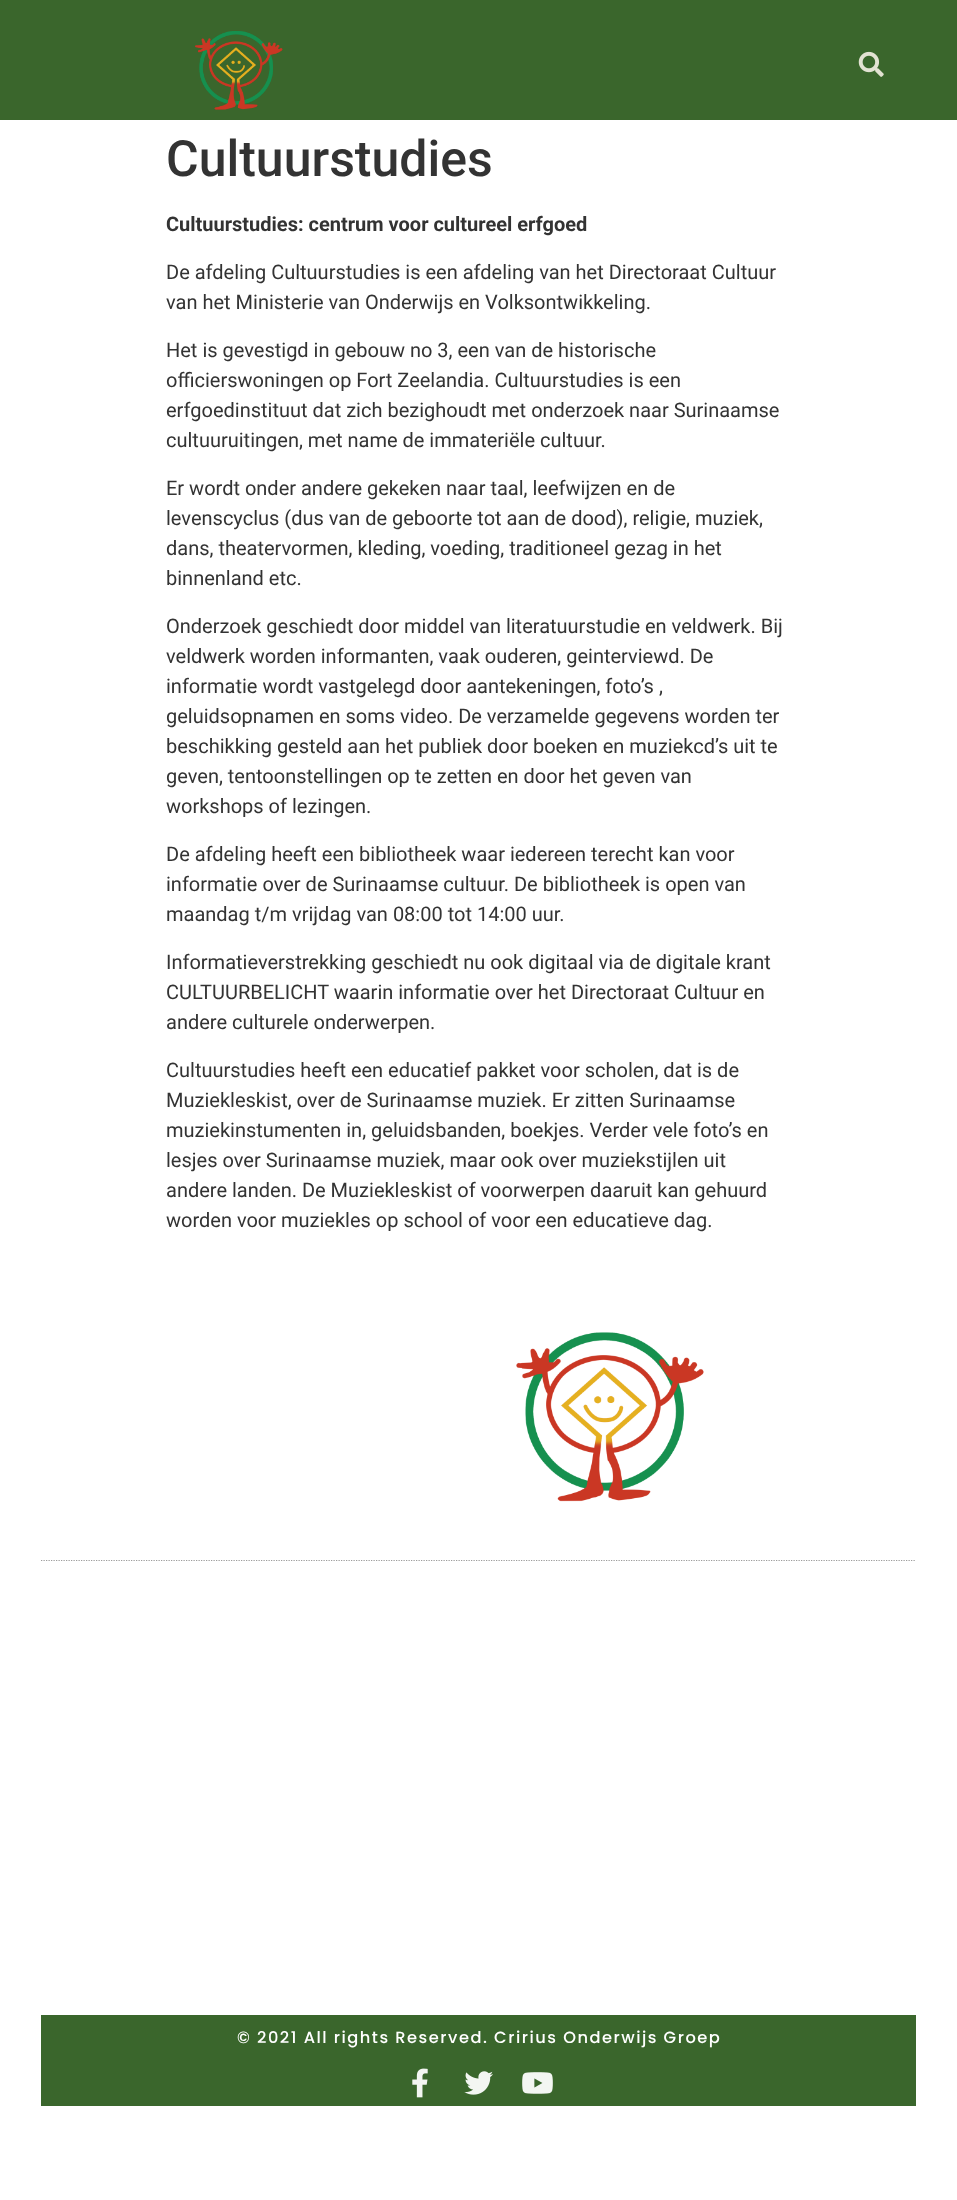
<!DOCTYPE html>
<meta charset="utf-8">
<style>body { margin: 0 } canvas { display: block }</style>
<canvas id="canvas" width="957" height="2200"></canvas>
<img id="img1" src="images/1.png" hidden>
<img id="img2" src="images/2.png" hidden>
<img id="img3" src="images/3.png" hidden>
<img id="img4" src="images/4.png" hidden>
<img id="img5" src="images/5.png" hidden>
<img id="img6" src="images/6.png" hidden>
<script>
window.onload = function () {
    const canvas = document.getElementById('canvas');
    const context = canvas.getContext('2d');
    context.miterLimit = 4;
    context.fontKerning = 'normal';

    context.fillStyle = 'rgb(255, 255, 255)';
    context.fillRect(0, 0, 957, 2200);
    context.fillStyle = 'rgb(58, 102, 44)';
    context.fillRect(0, 0, 957, 120);
    context.drawImage(document.getElementById('img1'), 195, 31, 88, 79);
    context.drawImage(document.getElementById('img2'), 858, 51, 26, 26);
    context.beginPath();
    context.moveTo(41, 1560.5);
    context.lineTo(916, 1560.5);
    context.strokeStyle = 'rgb(155, 155, 155)';
    context.lineWidth = 1.2;
    context.setLineDash([1.25, 1.25]);
    context.stroke();
    context.drawImage(document.getElementById('img3'), 516, 1332, 188, 170);
    context.fillRect(41, 2015, 875, 91);
    context.drawImage(document.getElementById('img4'), 412, 2068, 16, 30);
    context.drawImage(document.getElementById('img5'), 464, 2071, 29, 24);
    context.drawImage(document.getElementById('img6'), 522, 2072, 31, 22);
    context.font = '500 50px Roboto';
    context.fillStyle = 'rgb(51, 51, 51)';
    context.fillText('Cultuurstudies', 166, 176);
    context.font = 'bold 20px Roboto';
    context.fillText('Cultuurstudies: centrum voor cultureel erfgoed', 166, 231);
    context.font = '20px Roboto';
    context.fillText('De afdeling Cultuurstudies is een afdeling van het Directoraat Cultuur', 166, 279);
    context.fillText('van het Ministerie van Onderwijs en Volksontwikkeling.', 166, 309);
    context.fillText('Het is gevestigd in gebouw no 3, een van de historische', 166, 357);
    context.fillText('officierswoningen op Fort Zeelandia. Cultuurstudies is een', 166, 387);
    context.fillText('erfgoedinstituut dat zich bezighoudt met onderzoek naar Surinaamse', 166, 417);
    context.fillText('cultuuruitingen, met name de immateriële cultuur.', 166, 447);
    context.fillText('Er wordt onder andere gekeken naar taal, leefwijzen en de', 166, 495);
    context.fillText('levenscyclus (dus van de geboorte tot aan de dood), religie, muziek,', 166, 525);
    context.fillText('dans, theatervormen, kleding, voeding, traditioneel gezag in het', 166, 555);
    context.fillText('binnenland etc.', 166, 585);
    context.fillText('Onderzoek geschiedt door middel van literatuurstudie en veldwerk. Bij', 166, 633);
    context.fillText('veldwerk worden informanten, vaak ouderen, geinterviewd. De', 166, 663);
    context.fillText('informatie wordt vastgelegd door aantekeningen, foto’s ,', 166, 693);
    context.fillText('geluidsopnamen en soms video. De verzamelde gegevens worden ter', 166, 723);
    context.fillText('beschikking gesteld aan het publiek door boeken en muziekcd’s uit te', 166, 753);
    context.fillText('geven, tentoonstellingen op te zetten en door het geven van', 166, 783);
    context.fillText('workshops of lezingen.', 166, 813);
    context.fillText('De afdeling heeft een bibliotheek waar iedereen terecht kan voor', 166, 861);
    context.fillText('informatie over de Surinaamse cultuur. De bibliotheek is open van', 166, 891);
    context.fillText('maandag t/m vrijdag van 08:00 tot 14:00 uur.', 166, 921);
    context.fillText('Informatieverstrekking geschiedt nu ook digitaal via de digitale krant', 166, 969);
    context.fillText('CULTUURBELICHT waarin informatie over het Directoraat Cultuur en', 166, 999);
    context.fillText('andere culturele onderwerpen.', 166, 1029);
    context.fillText('Cultuurstudies heeft een educatief pakket voor scholen, dat is de', 166, 1077);
    context.fillText('Muziekleskist, over de Surinaamse muziek. Er zitten Surinaamse', 166, 1107);
    context.fillText('muziekinstumenten in, geluidsbanden, boekjes. Verder vele foto’s en', 166, 1137);
    context.fillText('lesjes over Surinaamse muziek, maar ook over muziekstijlen uit', 166, 1167);
    context.fillText('andere landen. De Muziekleskist of voorwerpen daaruit kan gehuurd', 166, 1197);
    context.fillText('worden voor muziekles op school of voor een educatieve dag.', 166, 1227);
    context.letterSpacing = '1.5px';
    context.font = '500 16.25px Poppins';
    context.fillStyle = 'rgb(255, 255, 255)';
    context.fillText('© 2021 All rights Reserved. Cririus Onderwijs Groep', 237, 2043);
};
</script>
